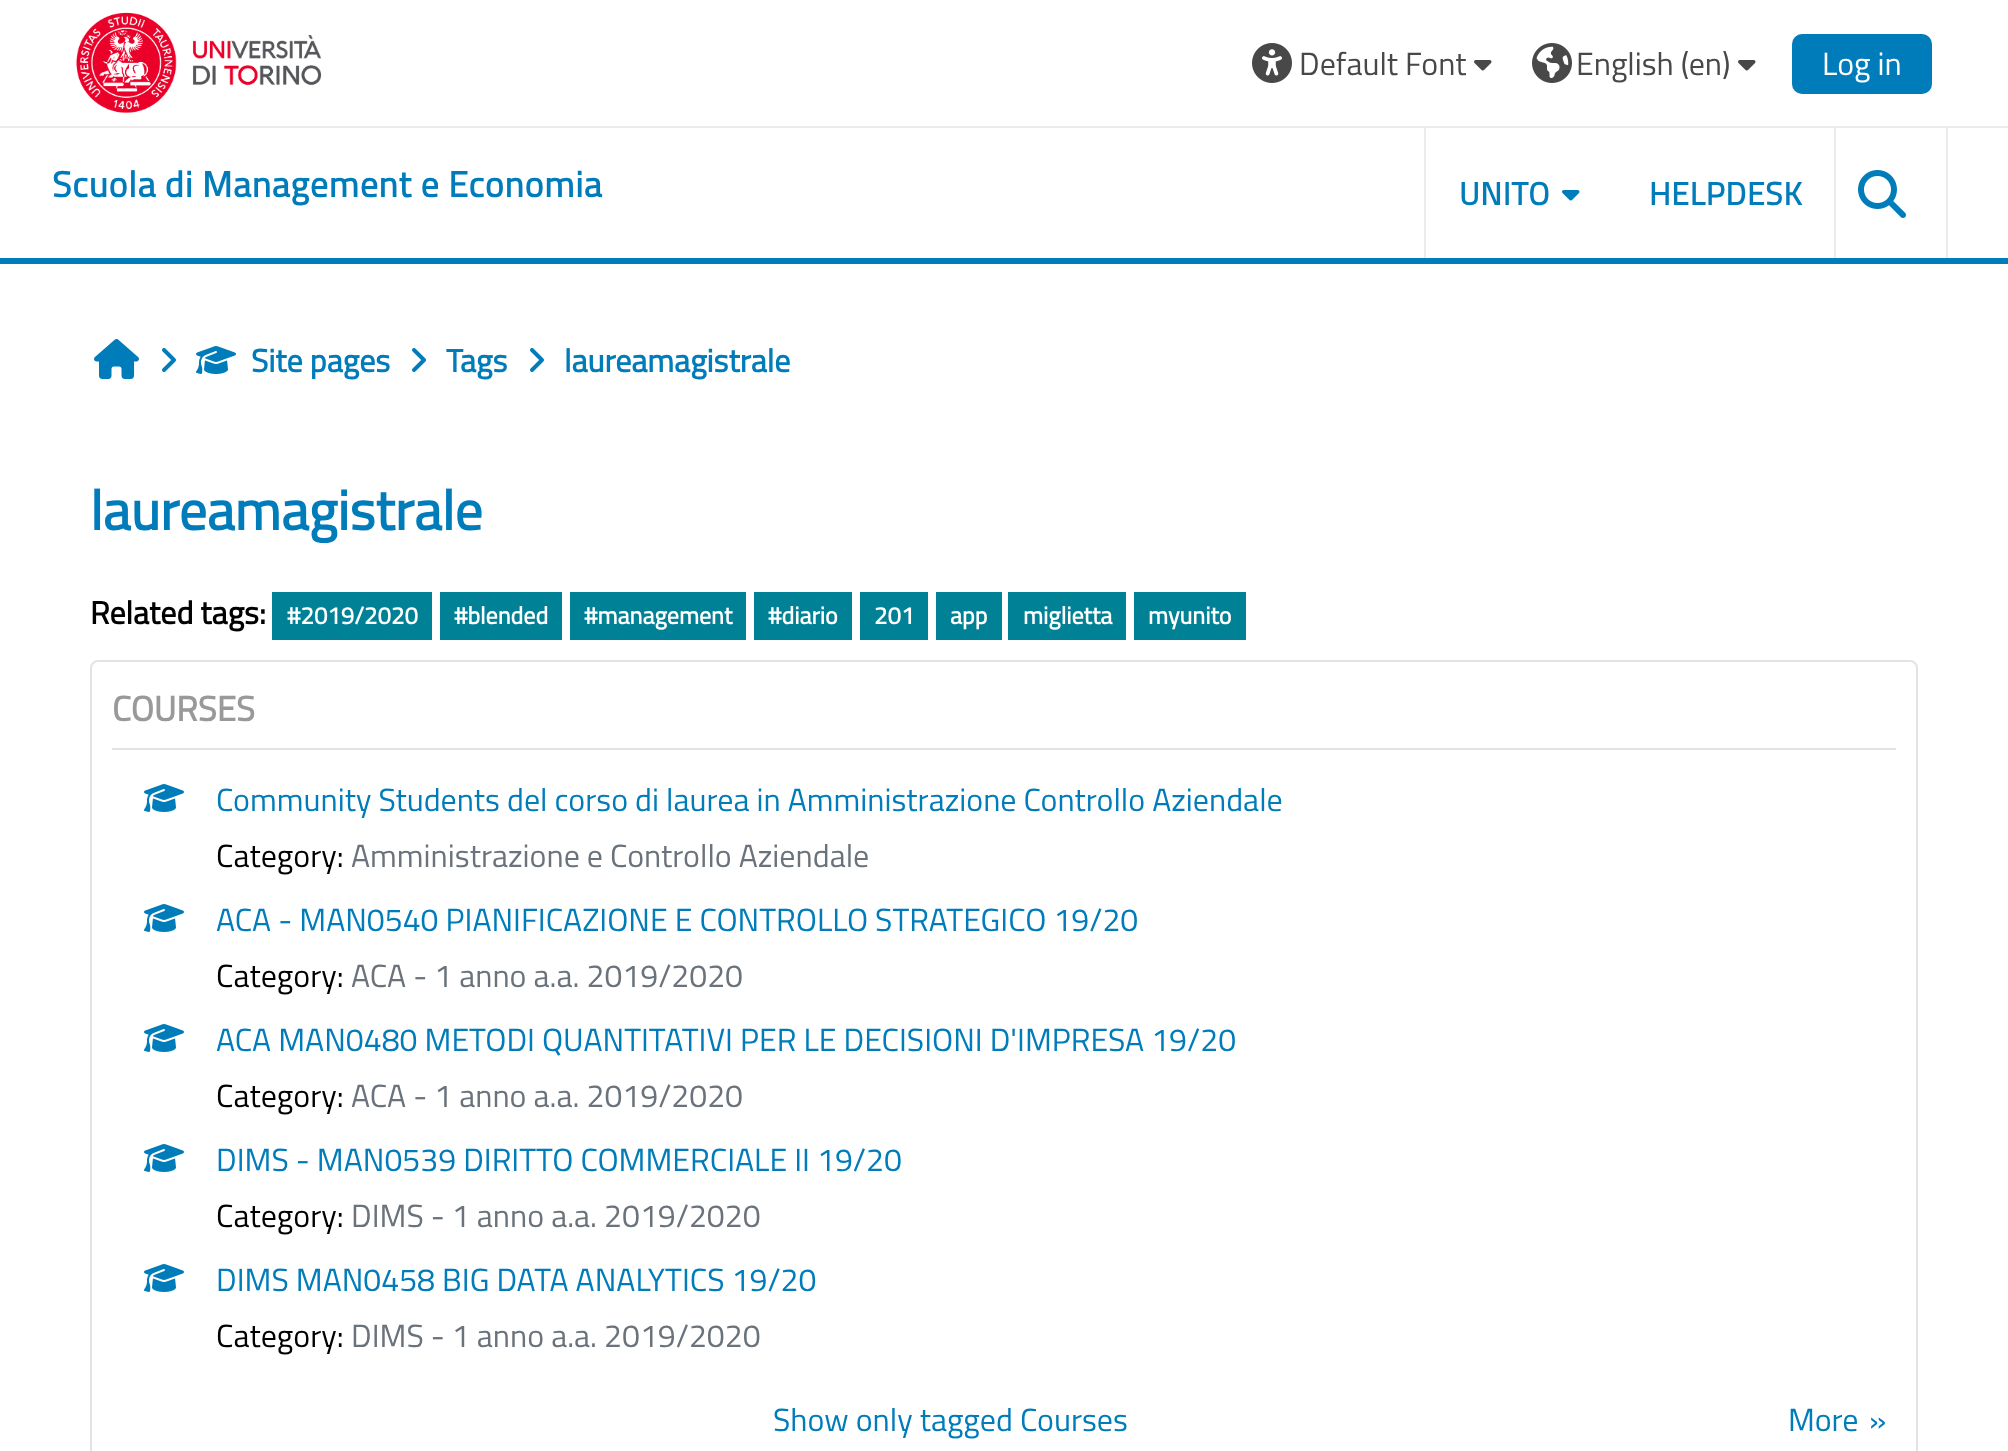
<!DOCTYPE html>
<meta charset="utf-8">
<style>body { margin: 0 } canvas { display: block }</style>
<canvas id="canvas" width="2008" height="1451"></canvas>
<img id="img1" src="images/1.png" hidden>
<img id="img2" src="images/2.png" hidden>
<img id="img3" src="images/3.png" hidden>
<img id="img4" src="images/4.png" hidden>
<img id="img5" src="images/5.png" hidden>
<img id="img6" src="images/6.png" hidden>
<img id="img7" src="images/7.png" hidden>
<img id="img8" src="images/8.png" hidden>
<img id="img9" src="images/9.png" hidden>
<script>
window.onload = function () {
    const canvas = document.getElementById('canvas');
    const context = canvas.getContext('2d');
    context.miterLimit = 4;
    context.fontKerning = 'normal';

    context.fillStyle = 'rgb(255, 255, 255)';
    context.fillRect(0, 0, 2008, 1451);
    context.fillStyle = 'rgb(0, 124, 186)';
    context.fillRect(0, 258, 2008, 6);
    context.fillStyle = 'rgb(236, 236, 236)';
    context.fillRect(0, 126, 2008, 2);
    context.drawImage(document.getElementById('img1'), 76, 12, 246, 102);
    context.drawImage(document.getElementById('img2'), 1252, 43, 40, 40);
    context.drawImage(document.getElementById('img3'), 1474, 60, 18, 11);
    context.drawImage(document.getElementById('img4'), 1532, 43, 40, 40);
    context.drawImage(document.getElementById('img3'), 1738, 60, 18, 11);
    context.fillStyle = 'rgb(0, 124, 186)';
    context.beginPath();
    context.roundRect(1792, 34, 140, 60, 10);
    context.fill();
    context.fillStyle = 'rgb(236, 236, 236)';
    context.fillRect(1834, 128, 2, 130);
    context.fillRect(1424, 128, 2, 130);
    context.drawImage(document.getElementById('img5'), 1562, 190, 18, 11);
    context.fillRect(1946, 128, 2, 130);
    context.drawImage(document.getElementById('img6'), 1858, 170, 48, 48);
    context.drawImage(document.getElementById('img7'), 94, 339, 45, 40);
    context.drawImage(document.getElementById('img8'), 162, 348, 14, 24);
    context.drawImage(document.getElementById('img9'), 196, 346, 40, 28);
    context.drawImage(document.getElementById('img8'), 412, 348, 14, 24);
    context.drawImage(document.getElementById('img8'), 530, 348, 14, 24);
    context.fillStyle = 'rgb(0, 129, 150)';
    context.fillRect(272, 592, 160, 48);
    context.fillRect(440, 592, 122, 48);
    context.fillRect(570, 592, 176, 48);
    context.fillRect(754, 592, 98, 48);
    context.fillRect(860, 592, 68, 48);
    context.fillRect(936, 592, 66, 48);
    context.fillRect(1008, 592, 118, 48);
    context.fillRect(1134, 592, 112, 48);
    context.beginPath();
    context.roundRect(91, 661, 1826, 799, 7);
    context.strokeStyle = 'rgb(227, 227, 227)';
    context.lineWidth = 2;
    context.stroke();
    context.fillStyle = 'rgb(227, 227, 227)';
    context.fillRect(112, 748, 1784, 2);
    context.drawImage(document.getElementById('img9'), 144, 784, 40, 28);
    context.drawImage(document.getElementById('img9'), 144, 904, 40, 28);
    context.drawImage(document.getElementById('img9'), 144, 1024, 40, 28);
    context.drawImage(document.getElementById('img9'), 144, 1144, 40, 28);
    context.drawImage(document.getElementById('img9'), 144, 1264, 40, 28);
    context.font = '32px Titillium Web';
    context.fillStyle = 'rgb(72, 72, 72)';
    context.fillText('Default Font', 1299, 75);
    context.fillText('English (en)', 1576, 75);
    context.fillStyle = 'rgb(255, 255, 255)';
    context.fillText('Log in', 1822, 75);
    context.letterSpacing = '0.75px';
    context.font = 'bold 36px Titillium Web';
    context.fillStyle = 'rgb(0, 124, 186)';
    context.fillText('Scuola di Management e Economia', 52, 197);
    context.font = 'bold 32px Titillium Web';
    context.fillText('UNITO', 1459, 205);
    context.fillText('HELPDESK', 1649, 205);
    context.letterSpacing = '0px';
    context.fillText('Site pages', 251, 372);
    context.fillText('Tags', 446, 372);
    context.fillText('laureamagistrale', 564, 372);
    context.font = 'bold 55.5px Titillium Web';
    context.fillText('laureamagistrale', 90, 530);
    context.font = 'bold 32px Titillium Web';
    context.fillStyle = 'rgb(0, 0, 0)';
    context.fillText('Related tags:', 90, 624);
    context.font = 'bold 24px Titillium Web';
    context.fillStyle = 'rgb(255, 255, 255)';
    context.fillText('#2019/2020', 287, 624);
    context.fillText('#blended', 454, 624);
    context.fillText('#management', 584, 624);
    context.fillText('#diario', 768, 624);
    context.fillText('201', 874, 624);
    context.fillText('app', 950, 624);
    context.fillText('miglietta', 1023, 624);
    context.fillText('myunito', 1148, 624);
    context.font = 'bold 35px Titillium Web';
    context.fillStyle = 'rgb(153, 153, 153)';
    context.fillText('COURSES', 112, 721);
    context.font = '32px Titillium Web';
    context.fillStyle = 'rgb(0, 124, 186)';
    context.fillText('Community Students del corso di laurea in Amministrazione Controllo Aziendale', 216, 811);
    context.fillStyle = 'rgb(0, 0, 0)';
    context.fillText('Category:', 216, 867);
    context.fillStyle = 'rgb(106, 115, 123)';
    context.fillText('Amministrazione e Controllo Aziendale', 351, 867);
    context.fillStyle = 'rgb(0, 124, 186)';
    context.fillText('ACA - MAN0540 PIANIFICAZIONE E CONTROLLO STRATEGICO 19/20', 216, 931);
    context.fillStyle = 'rgb(0, 0, 0)';
    context.fillText('Category:', 216, 987);
    context.fillStyle = 'rgb(106, 115, 123)';
    context.fillText('ACA - 1 anno a.a. 2019/2020', 351, 987);
    context.fillStyle = 'rgb(0, 124, 186)';
    context.fillText('ACA MAN0480 METODI QUANTITATIVI PER LE DECISIONI D\'IMPRESA 19/20', 216, 1051);
    context.fillStyle = 'rgb(0, 0, 0)';
    context.fillText('Category:', 216, 1107);
    context.fillStyle = 'rgb(106, 115, 123)';
    context.fillText('ACA - 1 anno a.a. 2019/2020', 351, 1107);
    context.fillStyle = 'rgb(0, 124, 186)';
    context.fillText('DIMS - MAN0539 DIRITTO COMMERCIALE II 19/20', 216, 1171);
    context.fillStyle = 'rgb(0, 0, 0)';
    context.fillText('Category:', 216, 1227);
    context.fillStyle = 'rgb(106, 115, 123)';
    context.fillText('DIMS - 1 anno a.a. 2019/2020', 351, 1227);
    context.fillStyle = 'rgb(0, 124, 186)';
    context.fillText('DIMS MAN0458 BIG DATA ANALYTICS 19/20', 216, 1291);
    context.fillStyle = 'rgb(0, 0, 0)';
    context.fillText('Category:', 216, 1347);
    context.fillStyle = 'rgb(106, 115, 123)';
    context.fillText('DIMS - 1 anno a.a. 2019/2020', 351, 1347);
    context.fillStyle = 'rgb(0, 124, 186)';
    context.fillText('Show only tagged Courses', 773, 1431);
    context.fillText('More', 1788, 1431);
    context.fillText('»', 1869, 1431);
};
</script>
